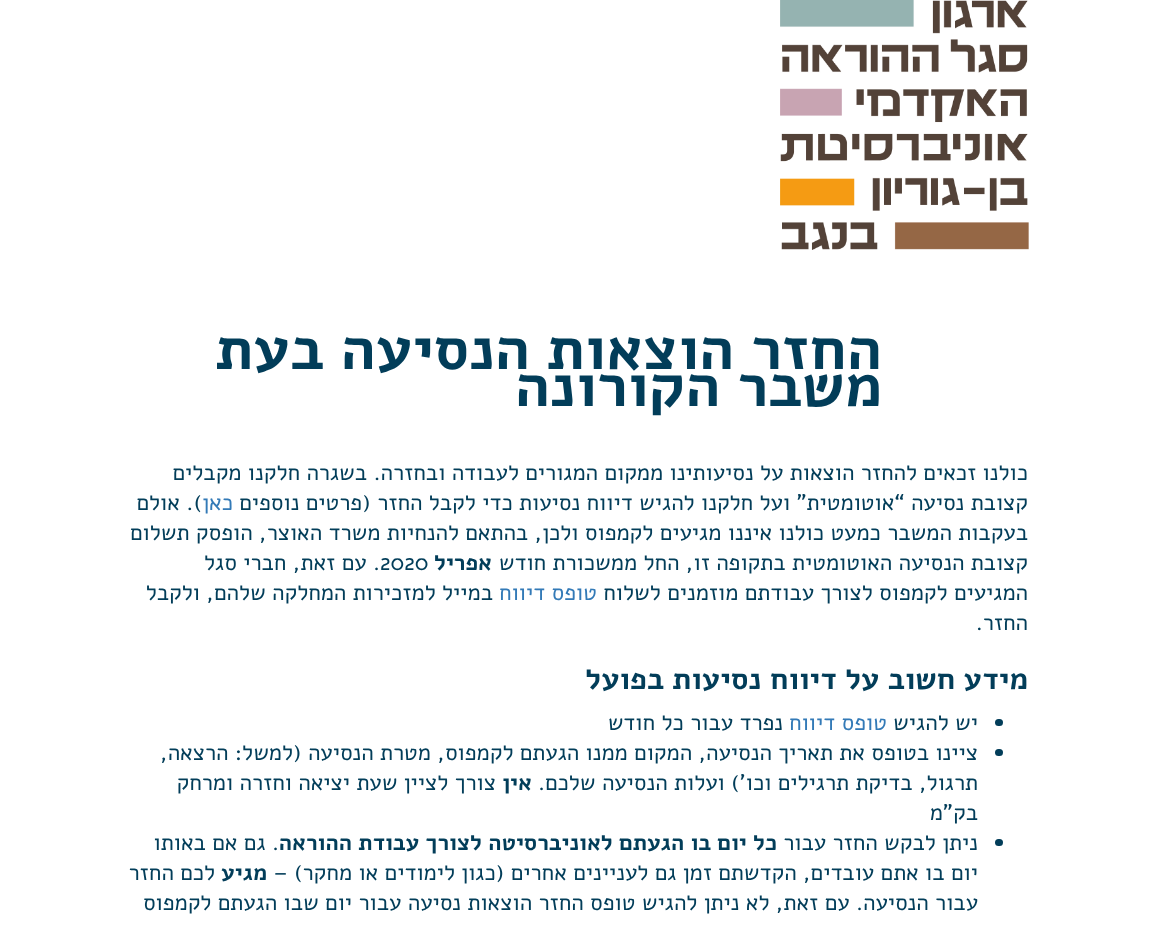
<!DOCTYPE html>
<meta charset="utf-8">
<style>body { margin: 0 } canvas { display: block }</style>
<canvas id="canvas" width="1156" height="937"></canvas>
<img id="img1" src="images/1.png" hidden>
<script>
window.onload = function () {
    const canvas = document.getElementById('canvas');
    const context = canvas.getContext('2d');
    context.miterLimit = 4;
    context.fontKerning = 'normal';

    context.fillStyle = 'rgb(255, 255, 255)';
    context.fillRect(0, 0, 1156, 937);
    context.drawImage(document.getElementById('img1'), 780, 0, 249, 250);
    context.fillStyle = 'rgb(2, 61, 89)';
    context.beginPath();
    context.roundRect(995, 719, 8, 7, 3.5);
    context.fill();
    context.beginPath();
    context.roundRect(995, 749, 8, 7, 3.5);
    context.fill();
    context.beginPath();
    context.roundRect(995, 839, 8, 7, 3.5);
    context.fill();
    context.direction = 'rtl';
    context.font = 'bold 60px Alef';
    context.fillText('החזר הוצאות הנסיעה בעת', 882, 369);
    context.fillText('משבר הקורונה', 882, 406);
    context.font = '22.5px Alef';
    context.fillText('כולנו זכאים להחזר הוצאות על נסיעותינו ממקום המגורים לעבודה ובחזרה. בשגרה חלקנו מקבלים', 1028, 480);
    context.fillText('קצובת נסיעה “אוטומטית” ועל חלקנו להגיש דיווח נסיעות כדי לקבל החזר (פרטים נוספים', 1028, 510);
    context.fillStyle = 'rgb(51, 122, 183)';
    context.fillText('כאן', 233, 510);
    context.fillStyle = 'rgb(2, 61, 89)';
    context.fillText('). אולם', 202, 510);
    context.fillText('בעקבות המשבר כמעט כולנו איננו מגיעים לקמפוס ולכן, בהתאם להנחיות משרד האוצר, הופסק תשלום', 1028, 540);
    context.fillText('קצובת הנסיעה האוטומטית בתקופה זו, החל ממשכורת חודש', 1028, 570);
    context.font = 'bold 22.5px Alef';
    context.fillText('אפריל', 492, 570);
    context.direction = 'ltr';
    context.font = '22.5px Alef';
    context.fillText('2020', 380, 570);
    context.direction = 'rtl';
    context.fillText('. עם זאת, חברי סגל', 380, 570);
    context.fillText('המגיעים לקמפוס לצורך עבודתם מוזמנים לשלוח', 1028, 600);
    context.fillStyle = 'rgb(51, 122, 183)';
    context.fillText('טופס דיווח', 597, 600);
    context.fillStyle = 'rgb(2, 61, 89)';
    context.fillText('במייל למזכירות המחלקה שלהם, ולקבל', 493, 600);
    context.fillText('החזר.', 1028, 630);
    context.font = 'bold 30px Alef';
    context.fillText('מידע חשוב על דיווח נסיעות בפועל', 1028, 689);
    context.font = '22.5px Alef';
    context.fillText('יש להגיש', 978, 730);
    context.fillStyle = 'rgb(51, 122, 183)';
    context.fillText('טופס דיווח', 887, 730);
    context.fillStyle = 'rgb(2, 61, 89)';
    context.fillText('נפרד עבור כל חודש', 783, 730);
    context.fillText('ציינו בטופס את תאריך הנסיעה, המקום ממנו הגעתם לקמפוס, מטרת הנסיעה (למשל: הרצאה,', 978, 760);
    context.fillText('תרגול, בדיקת תרגילים וכו’) ועלות הנסיעה שלכם.', 978, 790);
    context.font = 'bold 22.5px Alef';
    context.fillText('אין', 532, 790);
    context.font = '22.5px Alef';
    context.fillText('צורך לציין שעת יציאה וחזרה ומרחק', 496, 790);
    context.fillText('בק”מ', 978, 820);
    context.fillText('ניתן לבקש החזר עבור', 978, 850);
    context.font = 'bold 22.5px Alef';
    context.fillText('כל יום בו הגעתם לאוניברסיטה לצורך עבודת ההוראה', 777, 850);
    context.font = '22.5px Alef';
    context.fillText('. גם אם באותו', 279, 850);
    context.fillText('יום בו אתם עובדים, הקדשתם זמן גם לעניינים אחרים (כגון לימודים או מחקר) –', 978, 880);
    context.font = 'bold 22.5px Alef';
    context.fillText('מגיע', 267, 880);
    context.font = '22.5px Alef';
    context.fillText('לכם החזר', 215, 880);
    context.fillText('עבור הנסיעה. עם זאת, לא ניתן להגיש טופס החזר הוצאות נסיעה עבור יום שבו הגעתם לקמפוס', 978, 910);
};
</script>
